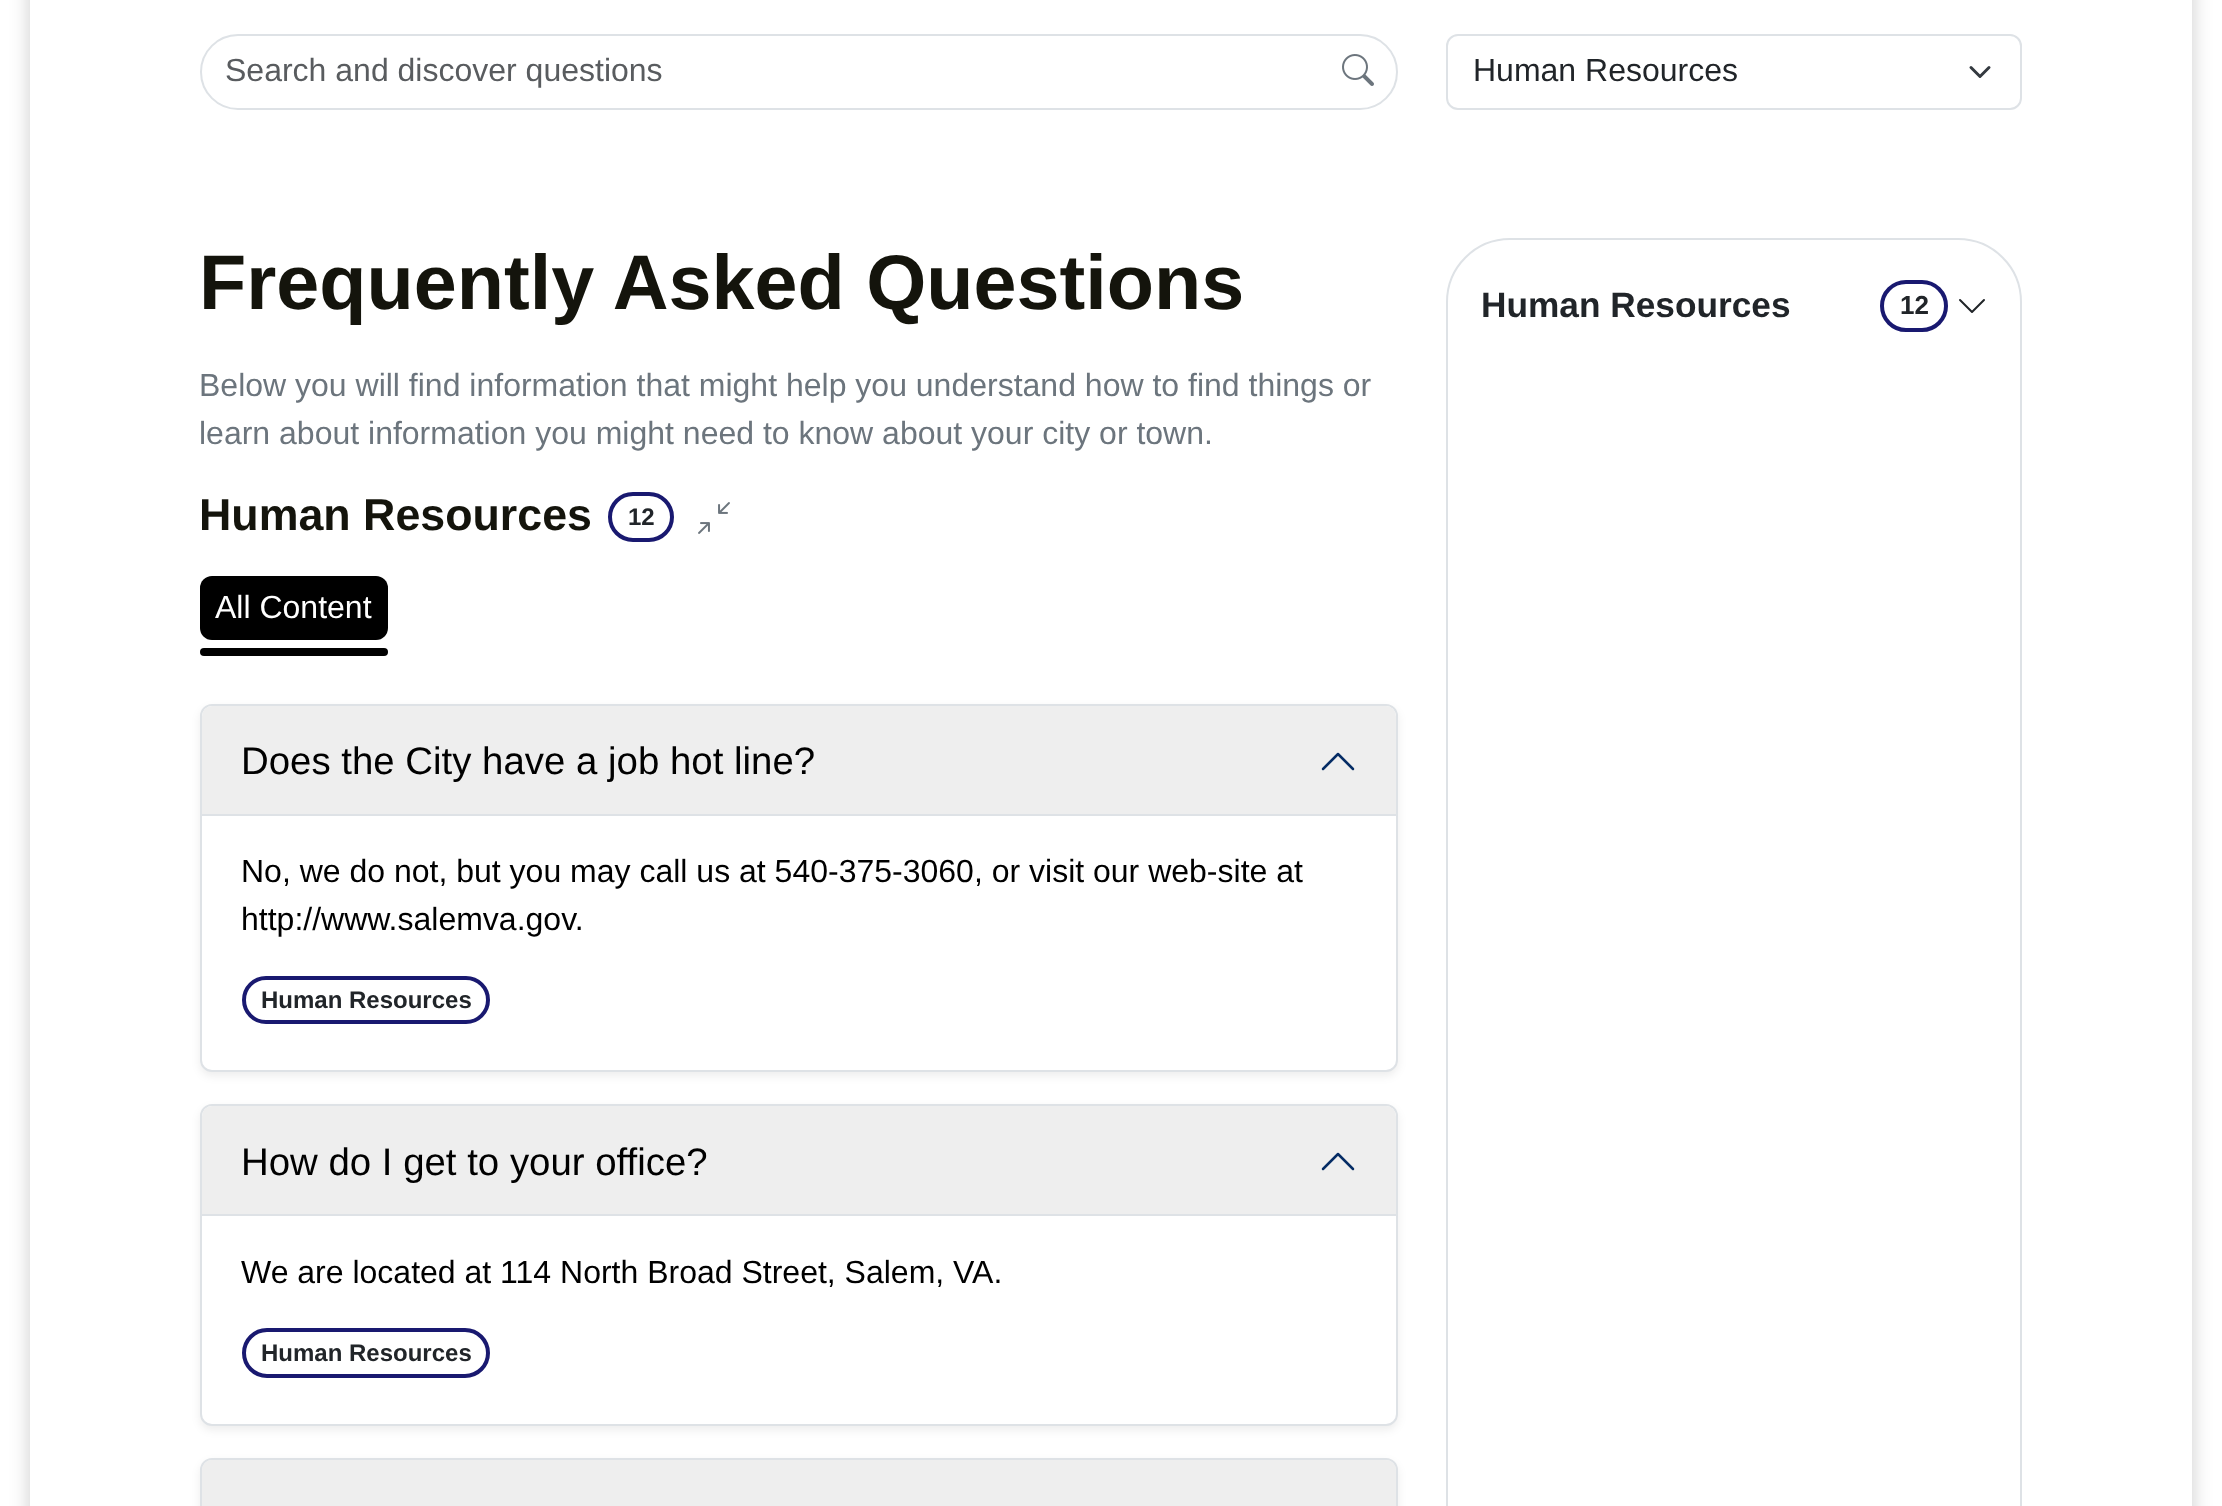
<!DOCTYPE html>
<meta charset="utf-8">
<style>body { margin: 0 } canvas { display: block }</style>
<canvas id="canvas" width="2222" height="1506"></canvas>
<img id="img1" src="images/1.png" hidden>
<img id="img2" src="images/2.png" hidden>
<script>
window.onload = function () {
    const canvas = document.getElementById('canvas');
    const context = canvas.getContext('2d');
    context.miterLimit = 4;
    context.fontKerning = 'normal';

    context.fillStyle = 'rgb(255, 255, 255)';
    context.fillRect(0, 0, 2222, 1506);
    context.save();
    context.beginPath();
    context.moveTo(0, 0);
    context.lineTo(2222, 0);
    context.lineTo(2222, 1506);
    context.lineTo(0, 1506);
    context.closePath();
    context.moveTo(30, -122);
    context.lineTo(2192, -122);
    context.lineTo(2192, 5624);
    context.lineTo(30, 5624);
    context.closePath();
    context.clip('evenodd');
    context.fillStyle = 'rgba(0, 0, 0, 0.2)';
    context.filter = 'blur(10px)';
    context.beginPath();
    context.rect(30, -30, 2162, 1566);
    context.fill();
    context.filter = 'none';
    context.restore();
    context.beginPath();
    context.roundRect(201, 35, 1196, 74, 37);
    context.strokeStyle = 'rgb(222, 226, 230)';
    context.lineWidth = 2;
    context.stroke();
    context.drawImage(document.getElementById('img1'), 1342, 54, 32, 32);
    context.beginPath();
    context.moveTo(1971, 67.5);
    context.lineTo(1980, 76.5);
    context.lineTo(1989, 67.5);
    context.strokeStyle = 'rgb(52, 58, 64)';
    context.lineWidth = 3;
    context.lineCap = 'round';
    context.lineJoin = 'round';
    context.stroke();
    context.beginPath();
    context.roundRect(1447, 35, 574, 74, 11);
    context.strokeStyle = 'rgb(222, 226, 230)';
    context.lineWidth = 2;
    context.lineJoin = 'miter';
    context.stroke();
    context.beginPath();
    context.roundRect(610, 494, 62, 46, 23);
    context.strokeStyle = 'rgb(25, 25, 112)';
    context.lineWidth = 4;
    context.stroke();
    context.drawImage(document.getElementById('img2'), 698, 502, 32, 32);
    context.fillStyle = 'rgb(0, 0, 0)';
    context.beginPath();
    context.roundRect(200, 576, 188, 64, 12);
    context.fill();
    context.beginPath();
    context.roundRect(200, 648, 188, 8, 4);
    context.fill();
    context.fillStyle = 'rgba(0, 0, 0, 0.07)';
    context.filter = 'blur(4px)';
    context.beginPath();
    context.roundRect(200, 708, 1198, 368, 12);
    context.fill();
    context.filter = 'none';
    context.fillStyle = 'rgb(255, 255, 255)';
    context.beginPath();
    context.roundRect(201, 705, 1196, 366, 11);
    context.fill();
    context.strokeStyle = 'rgb(222, 226, 230)';
    context.lineWidth = 2;
    context.stroke();
    context.fillStyle = 'rgb(238, 238, 238)';
    context.beginPath();
    context.roundRect(202, 706, 1194, 110, [10, 10, 0, 0]);
    context.fill();
    context.fillStyle = 'rgb(222, 226, 230)';
    context.fillRect(202, 814, 1194, 2);
    context.beginPath();
    context.moveTo(1353, 769);
    context.lineTo(1338, 754);
    context.lineTo(1323, 769);
    context.strokeStyle = 'rgb(5, 44, 101)';
    context.lineWidth = 2.5;
    context.lineJoin = 'round';
    context.stroke();
    context.beginPath();
    context.roundRect(244, 978, 244, 44, 22);
    context.strokeStyle = 'rgb(25, 25, 112)';
    context.lineWidth = 4;
    context.lineJoin = 'miter';
    context.stroke();
    context.fillStyle = 'rgba(0, 0, 0, 0.07)';
    context.filter = 'blur(4px)';
    context.beginPath();
    context.roundRect(200, 1108, 1198, 322, 12);
    context.fill();
    context.filter = 'none';
    context.fillStyle = 'rgb(255, 255, 255)';
    context.beginPath();
    context.roundRect(201, 1105, 1196, 320, 11);
    context.fill();
    context.strokeStyle = 'rgb(222, 226, 230)';
    context.lineWidth = 2;
    context.stroke();
    context.fillStyle = 'rgb(238, 238, 238)';
    context.beginPath();
    context.roundRect(202, 1106, 1194, 110, [10, 10, 0, 0]);
    context.fill();
    context.fillStyle = 'rgb(222, 226, 230)';
    context.fillRect(202, 1214, 1194, 2);
    context.beginPath();
    context.moveTo(1353, 1169);
    context.lineTo(1338, 1154);
    context.lineTo(1323, 1169);
    context.strokeStyle = 'rgb(5, 44, 101)';
    context.lineWidth = 2.5;
    context.lineJoin = 'round';
    context.stroke();
    context.beginPath();
    context.roundRect(244, 1330, 244, 46, 23);
    context.strokeStyle = 'rgb(25, 25, 112)';
    context.lineWidth = 4;
    context.lineJoin = 'miter';
    context.stroke();
    context.fillStyle = 'rgba(0, 0, 0, 0.07)';
    context.filter = 'blur(4px)';
    context.beginPath();
    context.roundRect(200, 1462, 1198, 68, 12);
    context.fill();
    context.filter = 'none';
    context.beginPath();
    context.roundRect(201, 1459, 1196, 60, 11);
    context.strokeStyle = 'rgb(222, 226, 230)';
    context.lineWidth = 2;
    context.stroke();
    context.fillStyle = 'rgb(238, 238, 238)';
    context.beginPath();
    context.moveTo(212, 1460);
    context.lineTo(1386, 1460);
    context.bezierCurveTo(1391.5, 1460, 1396, 1464.5, 1396, 1470);
    context.lineTo(1396, 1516);
    context.lineTo(202, 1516);
    context.lineTo(202, 1470);
    context.bezierCurveTo(202, 1464.5, 206.5, 1460, 212, 1460);
    context.closePath();
    context.fill();
    context.beginPath();
    context.roundRect(1447, 239, 574, 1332, 63);
    context.stroke();
    context.beginPath();
    context.roundRect(1882, 282, 64, 48, 24);
    context.strokeStyle = 'rgb(25, 25, 112)';
    context.lineWidth = 4;
    context.stroke();
    context.beginPath();
    context.moveTo(1960, 300);
    context.lineTo(1972, 312);
    context.lineTo(1984, 300);
    context.strokeStyle = 'rgb(33, 37, 41)';
    context.lineWidth = 2;
    context.lineJoin = 'round';
    context.stroke();
    context.font = '32px Liberation Sans';
    context.fillStyle = 'rgb(89, 92, 95)';
    context.fillText('Search and discover questions', 225, 81);
    context.fillStyle = 'rgb(33, 37, 41)';
    context.fillText('Human Resources', 1473, 81);
    context.font = 'bold 77.3px Liberation Sans';
    context.fillStyle = 'rgb(20, 20, 12)';
    context.fillText('Frequently Asked Questions', 199, 309);
    context.font = '32px Liberation Sans';
    context.fillStyle = 'rgb(108, 117, 125)';
    context.fillText('Below you will find information that might help you understand how to find things or', 199, 396);
    context.fillText('learn about information you might need to know about your city or town.', 199, 444);
    context.font = 'bold 44.75px Liberation Sans';
    context.fillStyle = 'rgb(20, 20, 12)';
    context.fillText('Human Resources', 199, 530);
    context.font = 'bold 24px Liberation Sans';
    context.fillStyle = 'rgb(33, 37, 41)';
    context.fillText('12', 628, 525);
    context.font = '32px Liberation Sans';
    context.fillStyle = 'rgb(255, 255, 255)';
    context.fillText('All Content', 215, 618);
    context.font = '38.4px Liberation Sans';
    context.fillStyle = 'rgb(0, 0, 0)';
    context.fillText('Does the City have a job hot line?', 241, 774);
    context.font = '32px Liberation Sans';
    context.fillText('No, we do not, but you may call us at 540-375-3060, or visit our web-site at', 241, 882);
    context.fillText('http://www.salemva.gov.', 241, 930);
    context.font = 'bold 24px Liberation Sans';
    context.fillStyle = 'rgb(33, 37, 41)';
    context.fillText('Human Resources', 261, 1008);
    context.font = '38.4px Liberation Sans';
    context.fillStyle = 'rgb(0, 0, 0)';
    context.fillText('How do I get to your office?', 241, 1175);
    context.font = '32px Liberation Sans';
    context.fillText('We are located at 114 North Broad Street, Salem, VA.', 241, 1283);
    context.font = 'bold 24px Liberation Sans';
    context.fillStyle = 'rgb(33, 37, 41)';
    context.fillText('Human Resources', 261, 1361);
    context.font = 'bold 35.25px Liberation Sans';
    context.fillText('Human Resources', 1481, 317);
    context.font = 'bold 26px Liberation Sans';
    context.fillText('12', 1900, 314);
};
</script>
